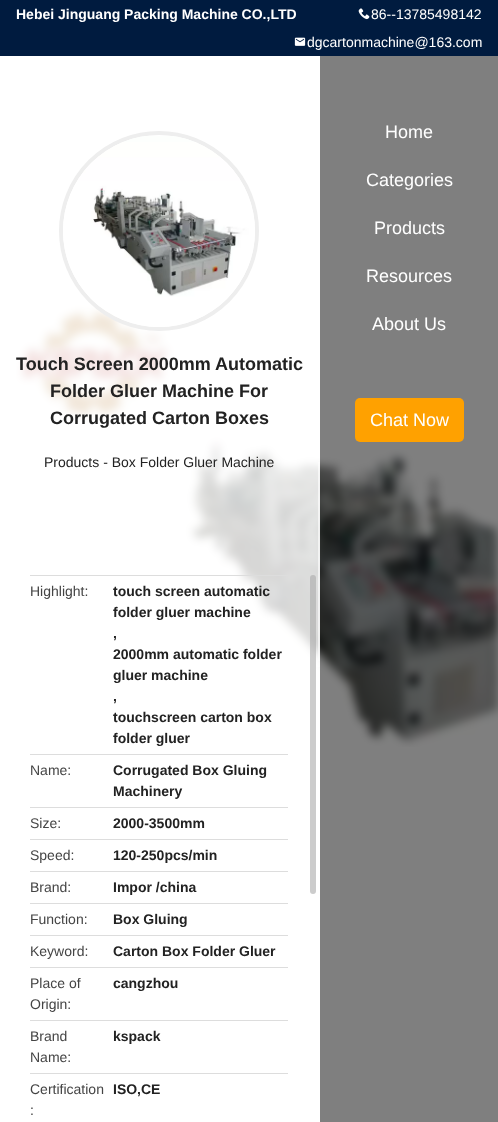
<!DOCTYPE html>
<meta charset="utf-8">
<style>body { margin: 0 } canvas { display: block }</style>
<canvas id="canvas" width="498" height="1122"></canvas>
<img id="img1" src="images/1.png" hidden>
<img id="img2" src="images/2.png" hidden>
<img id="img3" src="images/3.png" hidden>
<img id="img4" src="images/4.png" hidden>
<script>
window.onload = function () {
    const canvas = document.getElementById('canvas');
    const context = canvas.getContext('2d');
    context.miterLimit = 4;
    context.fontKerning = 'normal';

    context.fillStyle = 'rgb(255, 255, 255)';
    context.fillRect(0, 0, 498, 1122);
    context.fillStyle = 'rgb(0, 27, 63)';
    context.fillRect(0, 0, 498, 56);
    context.drawImage(document.getElementById('img1'), 358, 8, 12, 12);
    context.drawImage(document.getElementById('img2'), 294, 37, 12, 9);
    context.drawImage(document.getElementById('img3'), 16, 304, 482, 443);
    context.fillStyle = 'rgba(0, 0, 0, 0.5)';
    context.fillRect(320, 56, 178, 1066);
    context.fillStyle = 'rgb(255, 161, 0)';
    context.beginPath();
    context.roundRect(355, 398, 109, 44, 5);
    context.fill();
    context.fillStyle = 'rgba(255, 255, 255, 0.8)';
    context.fillRect(16, 304, 304, 363);
    context.fillStyle = 'rgba(255, 255, 255, 0.6)';
    context.fillRect(318, 462, 2, 199);
    context.beginPath();
    context.arc(159, 231, 98, 0, 2 * Math.PI);
    context.strokeStyle = 'rgb(238, 238, 238)';
    context.lineWidth = 4;
    context.stroke();
    context.drawImage(document.getElementById('img4'), 63, 136, 192, 191);
    context.fillStyle = 'rgb(221, 221, 221)';
    context.fillRect(30, 575, 258, 1);
    context.fillRect(30, 754, 258, 1);
    context.fillRect(30, 807, 258, 1);
    context.fillRect(30, 839, 258, 1);
    context.fillRect(30, 871, 258, 1);
    context.fillRect(30, 903, 258, 1);
    context.fillRect(30, 935, 258, 1);
    context.fillRect(30, 967, 258, 1);
    context.fillRect(30, 1020, 258, 1);
    context.fillRect(30, 1073, 258, 1);
    context.fillStyle = 'rgba(170, 170, 170, 0.6)';
    context.beginPath();
    context.roundRect(310, 575, 6, 319, 3);
    context.fill();
    context.font = 'bold 14px Liberation Sans';
    context.fillStyle = 'rgb(255, 255, 255)';
    context.fillText('Hebei Jinguang Packing Machine CO.,LTD', 16, 19);
    context.font = '14px Liberation Sans';
    context.fillText('86--13785498142', 371, 19);
    context.fillText('dgcartonmachine@163.com', 307, 47);
    context.font = '18px Liberation Sans';
    context.fillText('Home', 385, 138);
    context.fillText('Categories', 366, 186);
    context.fillText('Products', 374, 234);
    context.fillText('Resources', 366, 282);
    context.fillText('About Us', 372, 330);
    context.fillText('Chat Now', 370, 426);
    context.font = 'bold 18px Liberation Sans';
    context.fillStyle = 'rgb(34, 34, 34)';
    context.fillText('Touch Screen 2000mm Automatic', 16, 370);
    context.fillText('Folder Gluer Machine For', 50, 397);
    context.fillText('Corrugated Carton Boxes', 50, 424);
    context.font = '14px Liberation Sans';
    context.fillText('Products - Box Folder Gluer Machine', 44, 467);
    context.fillStyle = 'rgb(68, 68, 68)';
    context.fillText('Highlight:', 30, 596);
    context.font = 'bold 14px Liberation Sans';
    context.fillStyle = 'rgb(34, 34, 34)';
    context.fillText('touch screen automatic', 113, 596);
    context.fillText('folder gluer machine', 113, 617);
    context.fillText(',', 113, 638);
    context.fillText('2000mm automatic folder', 113, 659);
    context.fillText('gluer machine', 113, 680);
    context.fillText(',', 113, 701);
    context.fillText('touchscreen carton box', 113, 722);
    context.fillText('folder gluer', 113, 743);
    context.font = '14px Liberation Sans';
    context.fillStyle = 'rgb(68, 68, 68)';
    context.fillText('Name:', 30, 775);
    context.font = 'bold 14px Liberation Sans';
    context.fillStyle = 'rgb(34, 34, 34)';
    context.fillText('Corrugated Box Gluing', 113, 775);
    context.fillText('Machinery', 113, 796);
    context.font = '14px Liberation Sans';
    context.fillStyle = 'rgb(68, 68, 68)';
    context.fillText('Size:', 30, 828);
    context.font = 'bold 14px Liberation Sans';
    context.fillStyle = 'rgb(34, 34, 34)';
    context.fillText('2000-3500mm', 113, 828);
    context.font = '14px Liberation Sans';
    context.fillStyle = 'rgb(68, 68, 68)';
    context.fillText('Speed:', 30, 860);
    context.font = 'bold 14px Liberation Sans';
    context.fillStyle = 'rgb(34, 34, 34)';
    context.fillText('120-250pcs/min', 113, 860);
    context.font = '14px Liberation Sans';
    context.fillStyle = 'rgb(68, 68, 68)';
    context.fillText('Brand:', 30, 892);
    context.font = 'bold 14px Liberation Sans';
    context.fillStyle = 'rgb(34, 34, 34)';
    context.fillText('Impor /china', 113, 892);
    context.font = '14px Liberation Sans';
    context.fillStyle = 'rgb(68, 68, 68)';
    context.fillText('Function:', 30, 924);
    context.font = 'bold 14px Liberation Sans';
    context.fillStyle = 'rgb(34, 34, 34)';
    context.fillText('Box Gluing', 113, 924);
    context.font = '14px Liberation Sans';
    context.fillStyle = 'rgb(68, 68, 68)';
    context.fillText('Keyword:', 30, 956);
    context.font = 'bold 14px Liberation Sans';
    context.fillStyle = 'rgb(34, 34, 34)';
    context.fillText('Carton Box Folder Gluer', 113, 956);
    context.font = '14px Liberation Sans';
    context.fillStyle = 'rgb(68, 68, 68)';
    context.fillText('Place of', 30, 988);
    context.fillText('Origin:', 30, 1009);
    context.font = 'bold 14px Liberation Sans';
    context.fillStyle = 'rgb(34, 34, 34)';
    context.fillText('cangzhou', 113, 988);
    context.font = '14px Liberation Sans';
    context.fillStyle = 'rgb(68, 68, 68)';
    context.fillText('Brand', 30, 1041);
    context.fillText('Name:', 30, 1062);
    context.font = 'bold 14px Liberation Sans';
    context.fillStyle = 'rgb(34, 34, 34)';
    context.fillText('kspack', 113, 1041);
    context.font = '14px Liberation Sans';
    context.fillStyle = 'rgb(68, 68, 68)';
    context.fillText('Certification', 30, 1094);
    context.fillText(':', 30, 1115);
    context.font = 'bold 14px Liberation Sans';
    context.fillStyle = 'rgb(34, 34, 34)';
    context.fillText('ISO,CE', 113, 1094);
};
</script>
